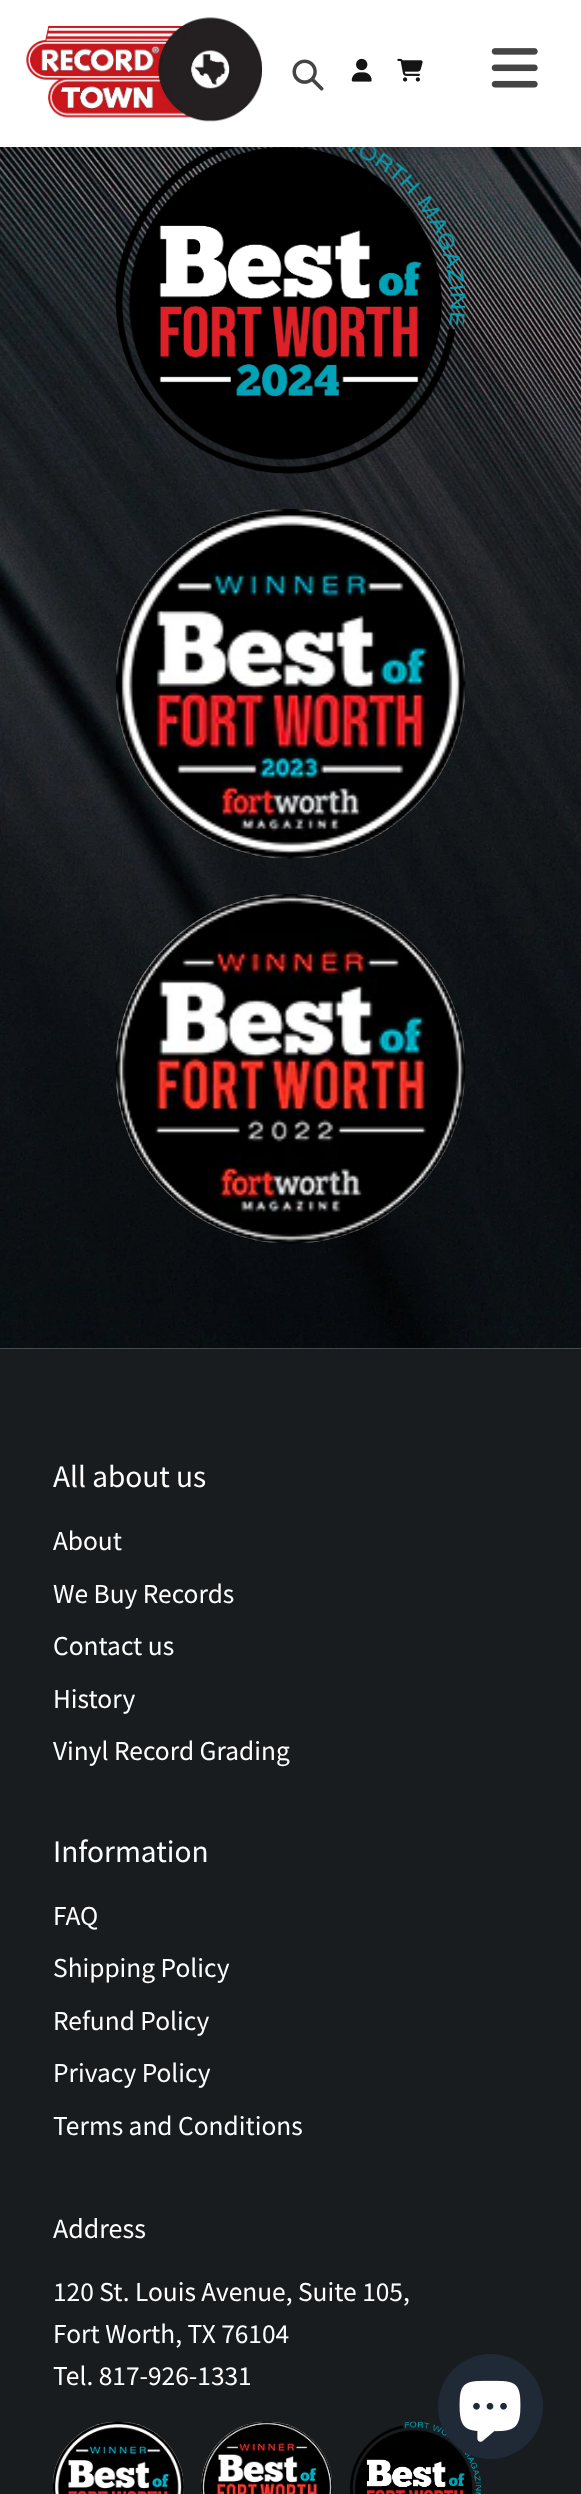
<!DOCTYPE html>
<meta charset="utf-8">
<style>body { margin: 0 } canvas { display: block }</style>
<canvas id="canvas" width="581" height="2494"></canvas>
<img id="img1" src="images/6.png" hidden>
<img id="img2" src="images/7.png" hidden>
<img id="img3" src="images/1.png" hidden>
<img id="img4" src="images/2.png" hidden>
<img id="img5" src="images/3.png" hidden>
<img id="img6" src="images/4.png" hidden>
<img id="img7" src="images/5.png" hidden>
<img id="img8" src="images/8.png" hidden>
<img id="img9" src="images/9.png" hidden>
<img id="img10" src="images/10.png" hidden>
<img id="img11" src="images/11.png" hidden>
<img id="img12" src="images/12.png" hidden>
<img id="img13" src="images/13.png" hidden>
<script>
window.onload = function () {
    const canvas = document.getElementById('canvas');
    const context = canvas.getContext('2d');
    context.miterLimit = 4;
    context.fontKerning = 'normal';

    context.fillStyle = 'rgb(255, 255, 255)';
    context.fillRect(0, 0, 581, 2494);
    context.drawImage(document.getElementById('img1'), 0, 147, 581, 1202);
    context.drawImage(document.getElementById('img2'), 115, 147, 351, 327);
    context.fillStyle = 'rgba(0, 0, 0, 0.15)';
    context.filter = 'blur(7px)';
    context.beginPath();
    context.rect(0, 4, 581, 147);
    context.fill();
    context.filter = 'none';
    context.fillStyle = 'rgb(255, 255, 255)';
    context.fillRect(0, 0, 581, 147);
    context.drawImage(document.getElementById('img3'), 26, 17, 237, 105);
    context.drawImage(document.getElementById('img4'), 292, 59, 32, 32);
    context.drawImage(document.getElementById('img5'), 351, 58, 21, 24);
    context.drawImage(document.getElementById('img6'), 397, 58, 26, 24);
    context.drawImage(document.getElementById('img7'), 491, 48, 47, 40);
    context.drawImage(document.getElementById('img8'), 115, 509, 351, 350);
    context.drawImage(document.getElementById('img9'), 115, 894, 351, 350);
    context.fillStyle = 'rgb(24, 28, 31)';
    context.fillRect(0, 1349, 581, 1145);
    context.drawImage(document.getElementById('img10'), 52, 2421, 132, 73);
    context.drawImage(document.getElementById('img11'), 201, 2421, 132, 73);
    context.drawImage(document.getElementById('img12'), 350, 2421, 132, 73);
    context.fillStyle = 'rgb(32, 42, 54)';
    context.beginPath();
    context.arc(490.5, 2406.5, 52.5, 0, 2 * Math.PI);
    context.fill();
    context.drawImage(document.getElementById('img13'), 459, 2380, 62, 62);
    context.font = '28px Noto Sans JP';
    context.fillStyle = 'rgb(255, 255, 255)';
    context.fillText('All about us', 53, 1487);
    context.font = '24.5px Noto Sans JP';
    context.fillText('About', 53, 1550);
    context.fillText('We Buy Records', 53, 1603);
    context.fillText('Contact us', 53, 1655);
    context.fillText('History', 53, 1708);
    context.fillText('Vinyl Record Grading', 53, 1760);
    context.font = '28px Noto Sans JP';
    context.fillText('Information', 53, 1862);
    context.font = '24.5px Noto Sans JP';
    context.fillText('FAQ', 53, 1925);
    context.fillText('Shipping Policy', 53, 1977);
    context.fillText('Refund Policy', 53, 2030);
    context.fillText('Privacy Policy', 53, 2082);
    context.fillText('Terms and Conditions', 53, 2135);
    context.font = '25px Noto Sans JP';
    context.fillText('Address', 53, 2238);
    context.font = '24.5px Noto Sans JP';
    context.fillText('120 St. Louis Avenue, Suite 105,', 53, 2301);
    context.fillText('Fort Worth, TX 76104', 53, 2343);
    context.fillText('Tel. 817-926-1331', 53, 2385);
};
</script>
